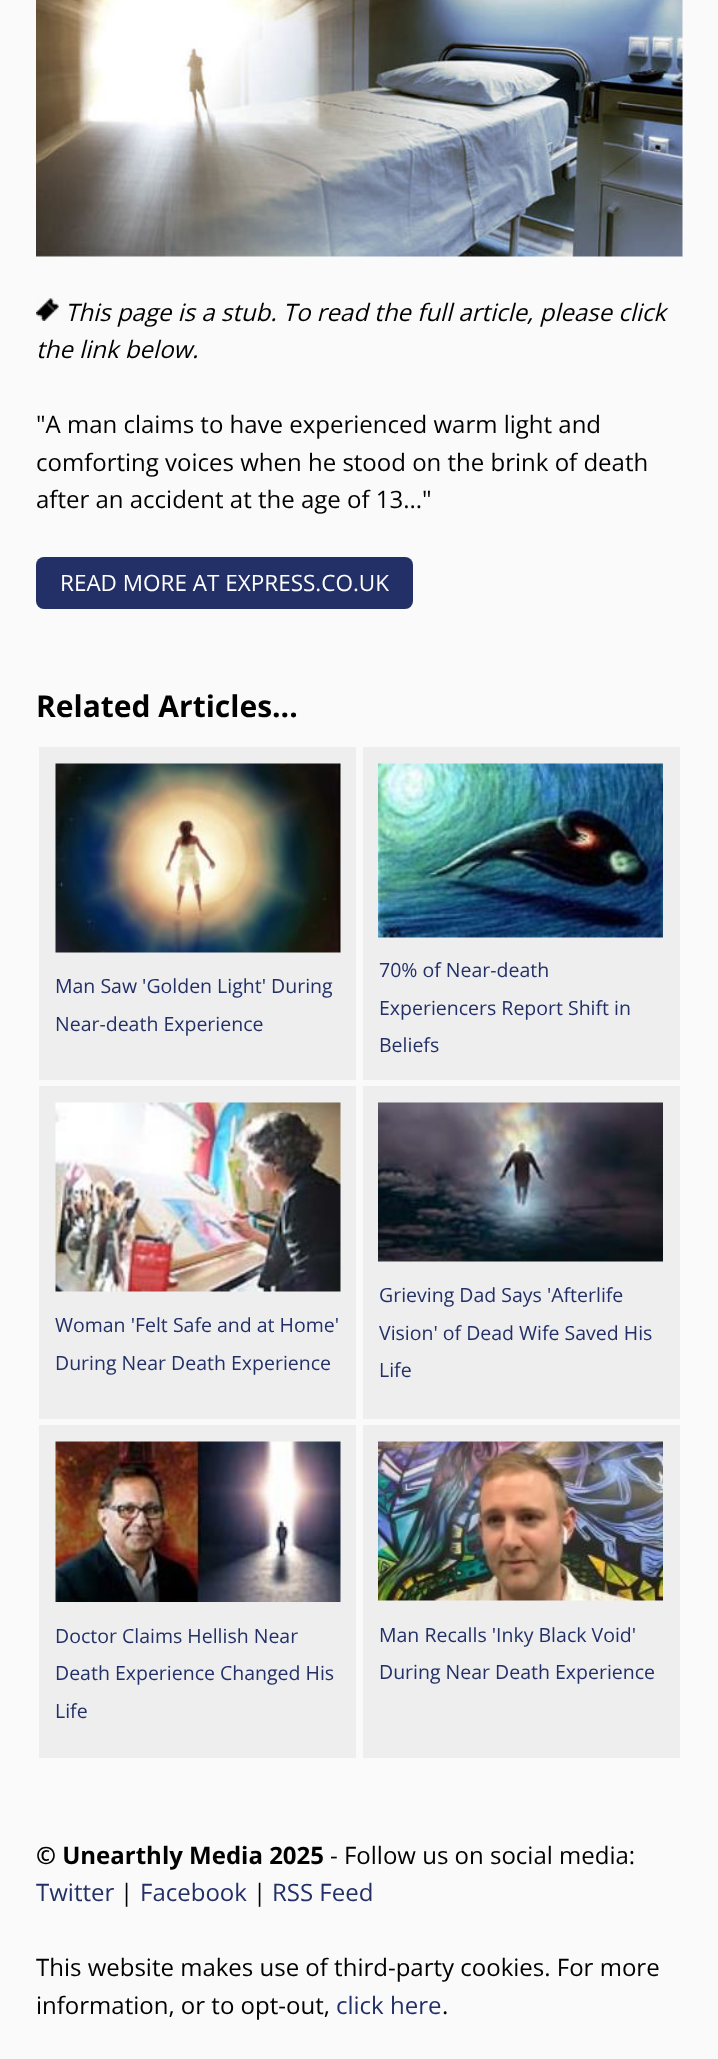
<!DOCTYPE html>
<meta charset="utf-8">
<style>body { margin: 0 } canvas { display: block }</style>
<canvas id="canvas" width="718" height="2059"></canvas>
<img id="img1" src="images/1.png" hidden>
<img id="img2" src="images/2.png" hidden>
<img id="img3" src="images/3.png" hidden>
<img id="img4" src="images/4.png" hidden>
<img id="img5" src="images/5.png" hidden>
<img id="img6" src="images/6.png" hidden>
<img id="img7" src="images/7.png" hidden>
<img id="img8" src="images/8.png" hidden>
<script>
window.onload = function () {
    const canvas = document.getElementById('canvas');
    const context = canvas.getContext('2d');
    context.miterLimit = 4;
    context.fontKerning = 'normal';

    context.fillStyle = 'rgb(250, 250, 250)';
    context.fillRect(0, 0, 718, 2059);
    context.drawImage(document.getElementById('img1'), 36, 0, 647, 257);
    context.drawImage(document.getElementById('img2'), 36, 298, 23, 23);
    context.fillStyle = 'rgb(34, 48, 103)';
    context.beginPath();
    context.roundRect(36, 557, 377, 52, 8);
    context.fill();
    context.fillStyle = 'rgb(238, 238, 238)';
    context.fillRect(39, 747, 317, 333);
    context.drawImage(document.getElementById('img3'), 55, 763, 286, 190);
    context.fillRect(363, 747, 317, 333);
    context.drawImage(document.getElementById('img4'), 378, 763, 285, 175);
    context.fillRect(39, 1086, 317, 333);
    context.drawImage(document.getElementById('img5'), 55, 1102, 286, 190);
    context.fillRect(363, 1086, 317, 333);
    context.drawImage(document.getElementById('img6'), 378, 1102, 285, 160);
    context.fillRect(39, 1425, 317, 333);
    context.drawImage(document.getElementById('img7'), 55, 1441, 286, 161);
    context.fillRect(363, 1425, 317, 333);
    context.drawImage(document.getElementById('img8'), 378, 1441, 285, 160);
    context.font = 'italic 24px Open Sans';
    context.fillStyle = 'rgb(0, 0, 0)';
    context.fillText('This page is a stub. To read the full article, please click', 65, 321);
    context.fillText('the link below.', 36, 358);
    context.font = '24px Open Sans';
    context.fillText('"A man claims to have experienced warm light and', 36, 433);
    context.fillText('comforting voices when he stood on the brink of death', 36, 471);
    context.fillText('after an accident at the age of 13..."', 36, 508);
    context.font = '22.5px Open Sans';
    context.fillStyle = 'rgb(255, 255, 255)';
    context.fillText('READ MORE AT EXPRESS.CO.UK', 60, 591);
    context.font = 'bold 30px Open Sans';
    context.fillStyle = 'rgb(0, 0, 0)';
    context.fillText('Related Articles...', 36, 717);
    context.font = '19.5px Open Sans';
    context.fillStyle = 'rgb(34, 48, 103)';
    context.fillText('Man Saw \'Golden Light\' During', 55, 993);
    context.fillText('Near-death Experience', 55, 1031);
    context.fillText('70% of Near-death', 379, 977);
    context.fillText('Experiencers Report Shift in', 379, 1015);
    context.fillText('Beliefs', 379, 1052);
    context.fillText('Woman \'Felt Safe and at Home\'', 55, 1332);
    context.fillText('During Near Death Experience', 55, 1370);
    context.fillText('Grieving Dad Says \'Afterlife', 379, 1302);
    context.fillText('Vision\' of Dead Wife Saved His', 379, 1340);
    context.fillText('Life', 379, 1377);
    context.fillText('Doctor Claims Hellish Near', 55, 1643);
    context.fillText('Death Experience Changed His', 55, 1680);
    context.fillText('Life', 55, 1718);
    context.fillText('Man Recalls \'Inky Black Void\'', 379, 1642);
    context.fillText('During Near Death Experience', 379, 1679);
    context.font = 'bold 24px Open Sans';
    context.fillStyle = 'rgb(0, 0, 0)';
    context.fillText('© Unearthly Media 2025', 36, 1864);
    context.font = '24px Open Sans';
    context.fillText('- Follow us on social media:', 330, 1864);
    context.fillStyle = 'rgb(34, 48, 103)';
    context.fillText('Twitter', 36, 1901);
    context.fillStyle = 'rgb(0, 0, 0)';
    context.fillText('|', 120, 1901);
    context.fillStyle = 'rgb(34, 48, 103)';
    context.fillText('Facebook', 140, 1901);
    context.fillStyle = 'rgb(0, 0, 0)';
    context.fillText('|', 253, 1901);
    context.fillStyle = 'rgb(34, 48, 103)';
    context.fillText('RSS Feed', 272, 1901);
    context.fillStyle = 'rgb(0, 0, 0)';
    context.fillText('This website makes use of third-party cookies. For more', 36, 1976);
    context.fillText('information, or to opt-out,', 36, 2014);
    context.fillStyle = 'rgb(34, 48, 103)';
    context.fillText('click here', 336, 2014);
    context.fillStyle = 'rgb(0, 0, 0)';
    context.fillText('.', 442, 2014);
};
</script>
